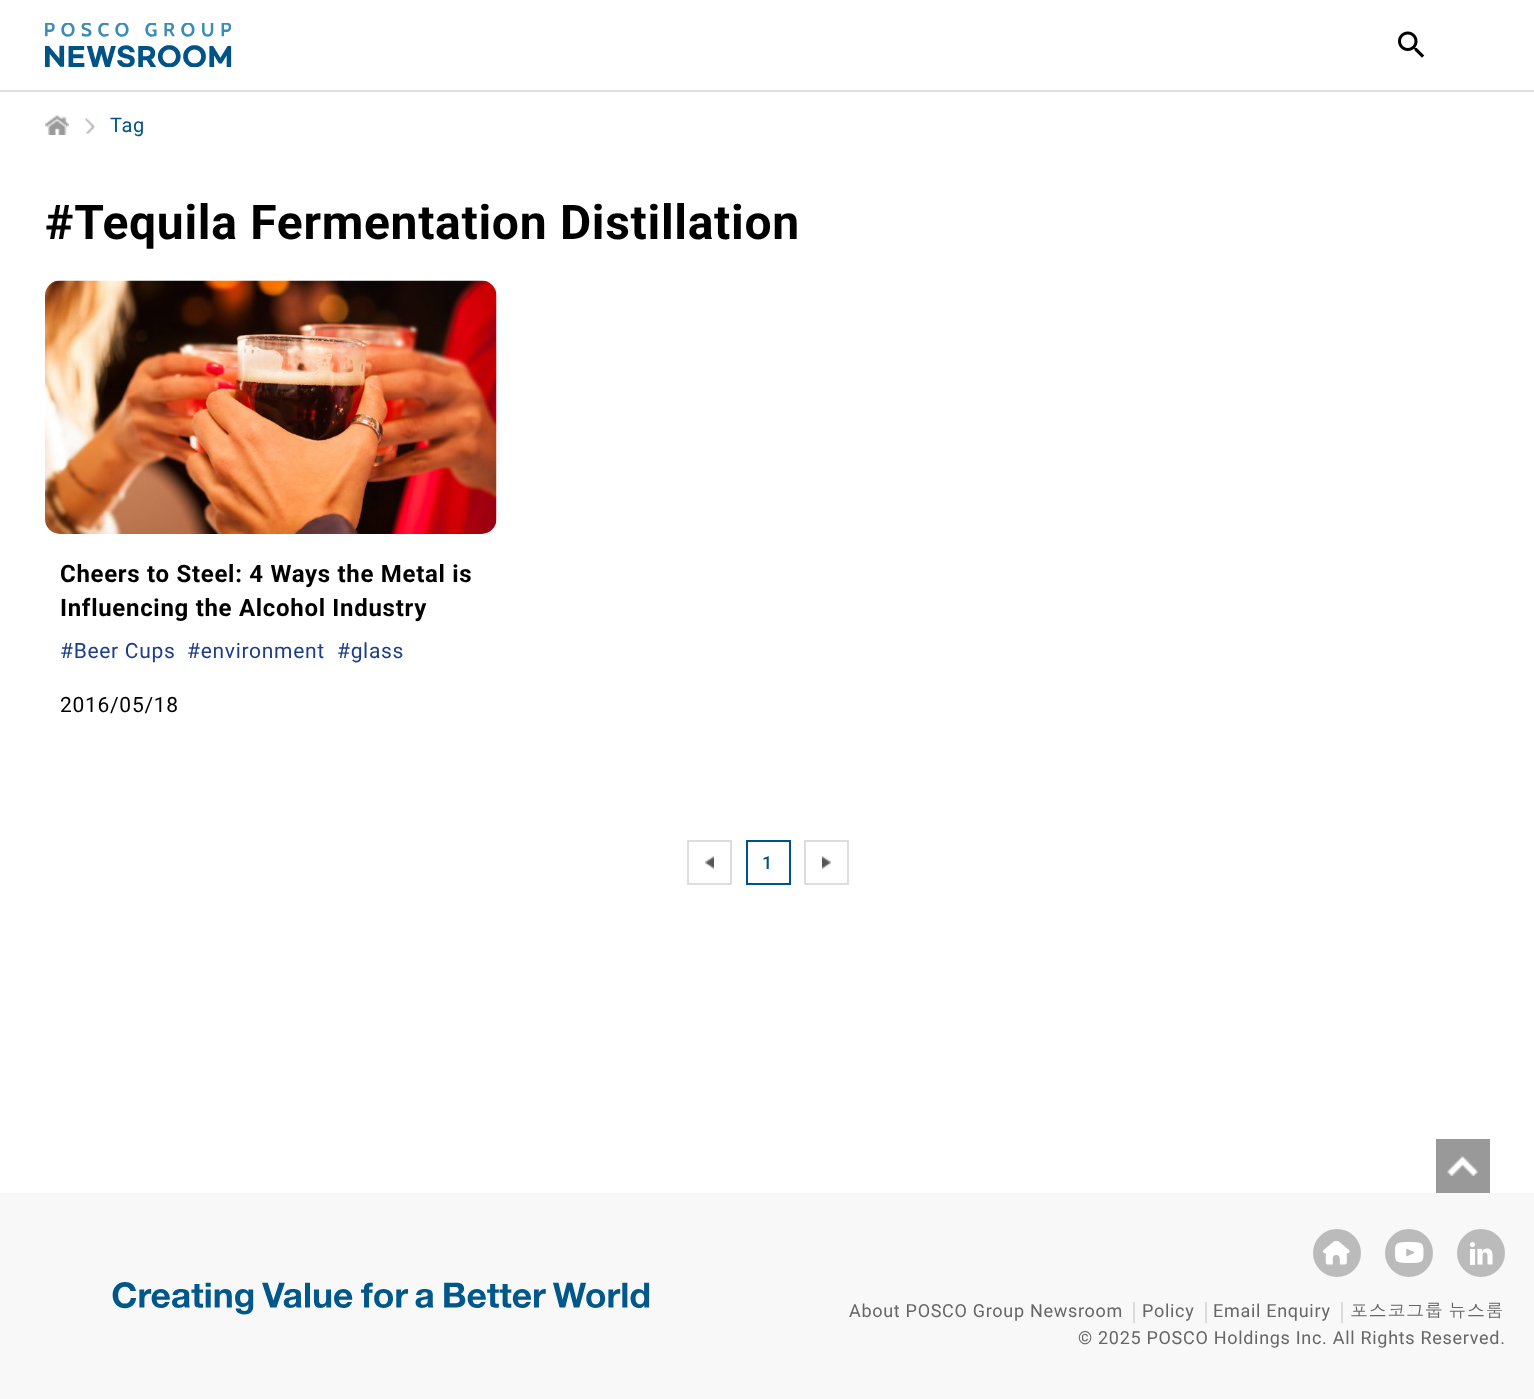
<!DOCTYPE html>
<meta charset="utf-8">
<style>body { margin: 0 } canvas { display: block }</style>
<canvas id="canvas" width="1534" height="1399"></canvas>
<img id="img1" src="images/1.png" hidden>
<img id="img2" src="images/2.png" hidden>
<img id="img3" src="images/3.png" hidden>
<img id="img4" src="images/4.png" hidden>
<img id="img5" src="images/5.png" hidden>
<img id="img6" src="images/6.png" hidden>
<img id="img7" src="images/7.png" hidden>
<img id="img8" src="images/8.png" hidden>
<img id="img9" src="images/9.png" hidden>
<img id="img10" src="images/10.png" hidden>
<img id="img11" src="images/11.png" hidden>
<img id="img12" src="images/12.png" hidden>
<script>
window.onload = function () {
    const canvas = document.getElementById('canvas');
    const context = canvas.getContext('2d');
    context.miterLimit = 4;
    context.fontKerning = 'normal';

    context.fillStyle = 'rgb(255, 255, 255)';
    context.fillRect(0, 0, 1534, 1399);
    context.fillStyle = 'rgb(222, 222, 229)';
    context.fillRect(0, 90, 1534, 2);
    context.drawImage(document.getElementById('img1'), 45, 23, 187, 45);
    context.drawImage(document.getElementById('img2'), 1398, 31, 27, 27);
    context.drawImage(document.getElementById('img3'), 45, 115, 24, 20);
    context.drawImage(document.getElementById('img4'), 85, 118, 10, 16);
    context.drawImage(document.getElementById('img5'), 45, 280, 452, 254);
    context.strokeStyle = 'rgb(221, 221, 221)';
    context.lineWidth = 2;
    context.strokeRect(688, 841, 43, 43);
    context.drawImage(document.getElementById('img6'), 705, 856, 9, 13);
    context.strokeStyle = 'rgb(0, 83, 134)';
    context.strokeRect(747, 841, 43, 43);
    context.strokeStyle = 'rgb(221, 221, 221)';
    context.strokeRect(805, 841, 43, 43);
    context.drawImage(document.getElementById('img7'), 822, 856, 9, 13);
    context.fillStyle = 'rgb(153, 153, 153)';
    context.fillRect(1436, 1139, 54, 54);
    context.drawImage(document.getElementById('img8'), 1447, 1156, 31, 20);
    context.fillStyle = 'rgb(248, 248, 248)';
    context.fillRect(0, 1193, 1534, 206);
    context.fillStyle = 'rgb(187, 187, 187)';
    context.beginPath();
    context.arc(1337, 1253, 24, 0, 2 * Math.PI);
    context.fill();
    context.drawImage(document.getElementById('img9'), 1323, 1241, 27, 24);
    context.beginPath();
    context.arc(1409, 1253, 24, 0, 2 * Math.PI);
    context.fill();
    context.drawImage(document.getElementById('img10'), 1395, 1242, 29, 21);
    context.beginPath();
    context.arc(1481, 1253, 24, 0, 2 * Math.PI);
    context.fill();
    context.drawImage(document.getElementById('img11'), 1470, 1242, 23, 23);
    context.drawImage(document.getElementById('img12'), 112, 1282, 538, 33);
    context.fillStyle = 'rgb(218, 218, 218)';
    context.fillRect(1133, 1302, 2, 21);
    context.fillRect(1205, 1302, 2, 21);
    context.fillRect(1341, 1302, 2, 21);
    context.letterSpacing = '0.7px';
    context.font = '20px Roboto';
    context.fillStyle = 'rgb(0, 83, 134)';
    context.fillText('Tag', 110, 132);
    context.font = 'bold 48px Roboto';
    context.fillStyle = 'rgb(0, 0, 0)';
    context.fillText('#Tequila Fermentation Distillation', 45, 239);
    context.font = 'bold 24px Roboto';
    context.fillText('Cheers to Steel: 4 Ways the Metal is', 60, 582);
    context.fillText('Influencing the Alcohol Industry', 60, 616);
    context.font = '21px Roboto';
    context.fillStyle = 'rgb(28, 62, 136)';
    context.fillText('#Beer Cups', 60, 658);
    context.fillText('#environment', 187, 658);
    context.fillText('#glass', 337, 658);
    context.fillStyle = 'rgb(0, 0, 0)';
    context.fillText('2016/05/18', 60, 712);
    context.font = '500 18px Roboto';
    context.fillStyle = 'rgb(0, 83, 134)';
    context.fillText('1', 762, 869);
    context.font = '18px Roboto';
    context.fillStyle = 'rgb(102, 102, 102)';
    context.fillText('About POSCO Group Newsroom', 849, 1317);
    context.fillText('Policy', 1142, 1317);
    context.fillText('Email Enquiry', 1213, 1317);
    context.wordSpacing = '-2px';
    context.font = '18px Dotum';
    context.fillText('포스코그룹 뉴스룸', 1350, 1317);
    context.wordSpacing = '0px';
    context.font = '18px Roboto';
    context.fillText('© 2025 POSCO Holdings Inc. All Rights Reserved.', 1078, 1344);
};
</script>
